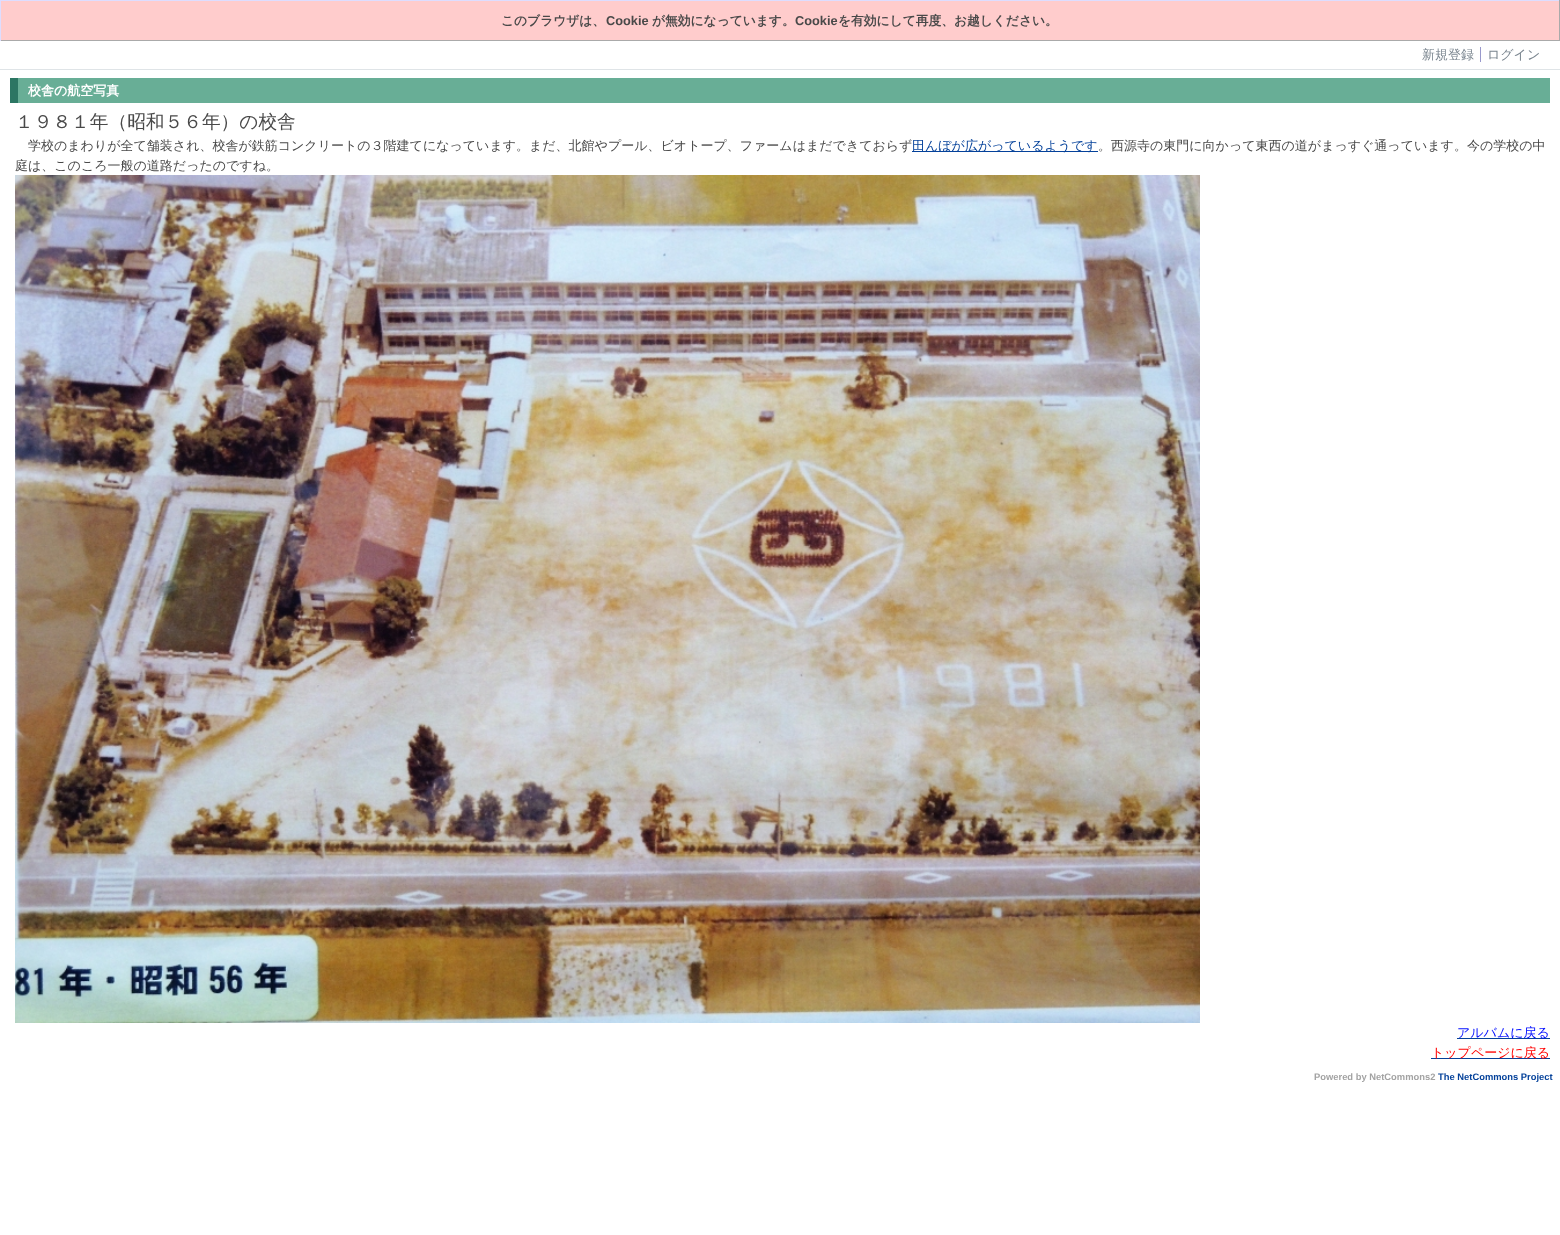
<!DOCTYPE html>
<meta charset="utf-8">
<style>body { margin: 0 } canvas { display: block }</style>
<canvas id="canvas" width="1560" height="1235"></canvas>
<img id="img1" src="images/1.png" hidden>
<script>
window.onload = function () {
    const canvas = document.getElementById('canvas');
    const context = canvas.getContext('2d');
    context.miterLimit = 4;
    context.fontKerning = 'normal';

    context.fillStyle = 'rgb(255, 255, 255)';
    context.fillRect(0, 0, 1560, 1235);
    context.fillStyle = 'rgb(255, 204, 204)';
    context.fillRect(1, 1, 1558, 39);
    context.fillStyle = 'rgb(221, 221, 255)';
    context.fillRect(0, 0, 1560, 1);
    context.fillStyle = 'rgb(170, 170, 170)';
    context.fillRect(1559, 0, 1, 41);
    context.fillRect(0, 40, 1560, 1);
    context.fillStyle = 'rgb(221, 221, 255)';
    context.fillRect(0, 0, 1, 41);
    context.fillStyle = 'rgb(223, 228, 231)';
    context.fillRect(0, 69, 1560, 1);
    context.fillStyle = 'rgb(153, 153, 204)';
    context.fillRect(1480, 47, 1, 15);
    context.fillStyle = 'rgb(44, 118, 99)';
    context.fillRect(10, 78, 8, 25);
    context.fillStyle = 'rgb(104, 174, 150)';
    context.fillRect(18, 78, 1532, 25);
    context.fillStyle = 'rgb(4, 65, 154)';
    context.fillRect(912, 151, 186, 1);
    context.drawImage(document.getElementById('img1'), 15, 175, 1185, 848);
    context.fillRect(1457, 1038, 93, 1);
    context.fillRect(1431, 1058, 119, 1);
    context.font = 'bold 12.75px WenQuanYi Zen Hei';
    context.fillStyle = 'rgb(73, 73, 73)';
    context.fillText('このブラウザは、', 501, 25);
    context.font = 'bold 12.75px Liberation Sans';
    context.fillText('Cookie', 606, 25);
    context.font = 'bold 12.75px WenQuanYi Zen Hei';
    context.fillText('が無効になっています。', 652, 25);
    context.font = 'bold 12.75px Liberation Sans';
    context.fillText('Cookie', 795, 25);
    context.font = 'bold 12.75px WenQuanYi Zen Hei';
    context.fillText('を有効にして再度、お越しください。', 838, 25);
    context.font = '500 13px WenQuanYi Zen Hei';
    context.fillStyle = 'rgb(122, 133, 143)';
    context.fillText('新規登録', 1422, 59);
    context.fillText('ログイン', 1487, 59);
    context.font = 'bold 13px WenQuanYi Zen Hei';
    context.fillStyle = 'rgb(255, 255, 255)';
    context.fillText('校舎の航空写真', 28, 95);
    context.font = '500 18.7px WenQuanYi Zen Hei';
    context.fillStyle = 'rgb(73, 73, 73)';
    context.fillText('１９８１年（昭和５６年）の校舎', 15, 128);
    context.font = '500 13px WenQuanYi Zen Hei';
    context.fillText('学校のまわりが全て舗装され、校舎が鉄筋コンクリートの３階建てになっています。まだ、北館やプール、ビオトープ、ファームはまだできておらず', 28, 150);
    context.fillStyle = 'rgb(4, 65, 154)';
    context.fillText('田んぼが広がっているようです', 912, 150);
    context.fillStyle = 'rgb(73, 73, 73)';
    context.fillText('。西源寺の東門に向かって東西の道がまっすぐ通っています。今の学校の中', 1098, 150);
    context.fillText('庭は、このころ一般の道路だったのですね。', 15, 170);
    context.fillStyle = 'rgb(0, 13, 255)';
    context.fillText('アルバムに戻る', 1457, 1037);
    context.fillStyle = 'rgb(255, 0, 0)';
    context.fillText('トップページに戻る', 1431, 1057);
    context.font = 'bold 9.4px Liberation Sans';
    context.fillStyle = 'rgb(163, 163, 163)';
    context.fillText('Powered by NetCommons2', 1314, 1080);
    context.fillStyle = 'rgb(4, 65, 154)';
    context.fillText('The NetCommons Project', 1438, 1080);
};
</script>
